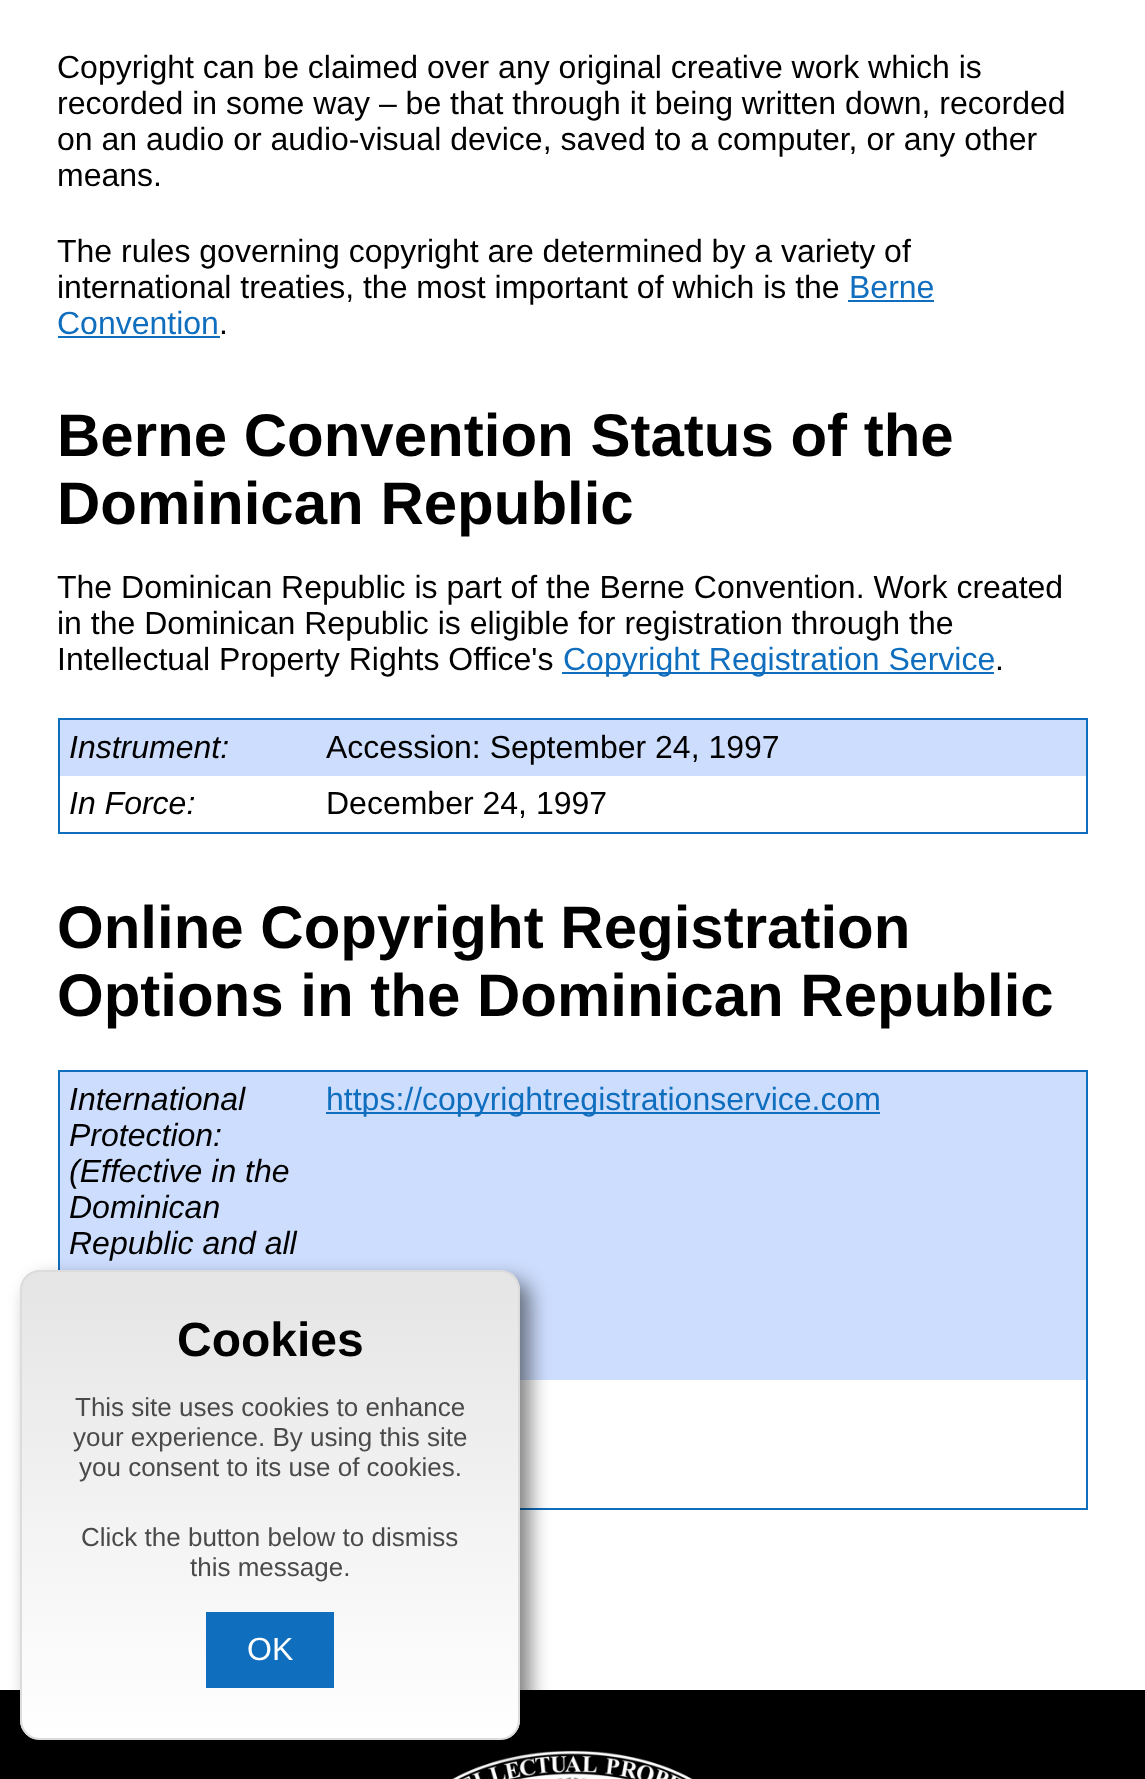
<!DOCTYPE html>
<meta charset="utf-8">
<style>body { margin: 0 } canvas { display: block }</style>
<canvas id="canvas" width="1145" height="1779"></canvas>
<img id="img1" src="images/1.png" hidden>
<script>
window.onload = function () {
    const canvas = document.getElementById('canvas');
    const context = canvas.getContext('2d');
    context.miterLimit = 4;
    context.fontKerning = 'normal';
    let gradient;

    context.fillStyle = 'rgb(255, 255, 255)';
    context.fillRect(0, 0, 1145, 1779);
    context.fillStyle = 'rgb(16, 110, 190)';
    context.fillRect(848, 300, 86, 2);
    context.fillRect(58, 336, 162, 2);
    context.fillRect(562, 672, 432, 2);
    context.fillRect(58, 718, 1030, 2);
    context.fillRect(1086, 718, 2, 116);
    context.fillRect(58, 832, 1030, 2);
    context.fillRect(58, 718, 2, 116);
    context.fillStyle = 'rgb(205, 221, 253)';
    context.fillRect(60, 720, 1026, 56);
    context.fillStyle = 'rgb(16, 110, 190)';
    context.fillRect(58, 1070, 1030, 2);
    context.fillRect(1086, 1070, 2, 440);
    context.fillRect(520, 1508, 568, 2);
    context.fillRect(58, 1070, 2, 200);
    context.fillStyle = 'rgb(205, 221, 253)';
    context.fillRect(60, 1072, 1026, 308);
    context.fillStyle = 'rgb(16, 110, 190)';
    context.fillRect(326, 1112, 554, 2);
    context.fillStyle = 'rgb(0, 0, 0)';
    context.fillRect(0, 1690, 1145, 89);
    context.drawImage(document.getElementById('img1'), 452, 1750, 241, 29);
    context.fillStyle = 'rgba(0, 0, 0, 0.5)';
    context.filter = 'blur(10px)';
    context.beginPath();
    context.roundRect(30, 1280, 500, 470, 20);
    context.fill();
    context.filter = 'none';
    context.save();
    context.beginPath();
    context.roundRect(20, 1270, 500, 470, 20);
    context.clip();
    gradient = context.createLinearGradient(270, 1272, 270, 1738);
    gradient.addColorStop(0, 'rgb(229, 229, 229)');
    gradient.addColorStop(1, 'rgb(255, 255, 255)');
    context.fillStyle = gradient;
    context.fillRect(20, 1272, 500, 466);
    context.restore();
    context.beginPath();
    context.roundRect(21, 1271, 498, 468, 19);
    context.strokeStyle = 'rgb(220, 220, 220)';
    context.lineWidth = 2;
    context.stroke();
    context.fillStyle = 'rgb(16, 110, 190)';
    context.fillRect(206, 1612, 128, 76);
    context.font = '32px Liberation Sans';
    context.fillStyle = 'rgb(0, 0, 0)';
    context.fillText('Copyright can be claimed over any original creative work which is', 57, 78);
    context.fillText('recorded in some way – be that through it being written down, recorded', 57, 114);
    context.fillText('on an audio or audio-visual device, saved to a computer, or any other', 57, 150);
    context.fillText('means.', 57, 186);
    context.fillText('The rules governing copyright are determined by a variety of', 57, 262);
    context.fillText('international treaties, the most important of which is the', 57, 298);
    context.fillStyle = 'rgb(16, 110, 190)';
    context.fillText('Berne', 849, 298);
    context.fillText('Convention', 57, 334);
    context.fillStyle = 'rgb(0, 0, 0)';
    context.fillText('.', 219, 334);
    context.font = 'bold 60px Liberation Sans';
    context.fillText('Berne Convention Status of the', 57, 456);
    context.fillText('Dominican Republic', 57, 524);
    context.font = '32px Liberation Sans';
    context.fillText('The Dominican Republic is part of the Berne Convention. Work created', 57, 598);
    context.fillText('in the Dominican Republic is eligible for registration through the', 57, 634);
    context.fillText('Intellectual Property Rights Office\'s', 57, 670);
    context.fillStyle = 'rgb(16, 110, 190)';
    context.fillText('Copyright Registration Service', 563, 670);
    context.fillStyle = 'rgb(0, 0, 0)';
    context.fillText('.', 995, 670);
    context.font = 'italic 32px Liberation Sans';
    context.fillText('Instrument:', 69, 758);
    context.font = '32px Liberation Sans';
    context.fillText('Accession: September 24, 1997', 326, 758);
    context.font = 'italic 32px Liberation Sans';
    context.fillText('In Force:', 69, 814);
    context.font = '32px Liberation Sans';
    context.fillText('December 24, 1997', 326, 814);
    context.font = 'bold 60px Liberation Sans';
    context.fillText('Online Copyright Registration', 57, 948);
    context.fillText('Options in the Dominican Republic', 57, 1016);
    context.font = 'italic 32px Liberation Sans';
    context.fillText('International', 69, 1110);
    context.fillText('Protection:', 69, 1146);
    context.fillText('(Effective in the', 69, 1182);
    context.fillText('Dominican', 69, 1218);
    context.fillText('Republic and all', 69, 1254);
    context.font = '32px Liberation Sans';
    context.fillStyle = 'rgb(16, 110, 190)';
    context.fillText('https://copyrightregistrationservice.com', 326, 1110);
    context.font = 'bold 48px Liberation Sans';
    context.fillStyle = 'rgb(0, 0, 0)';
    context.fillText('Cookies', 177, 1356);
    context.font = '26px Liberation Sans';
    context.fillStyle = 'rgb(74, 74, 74)';
    context.fillText('This site uses cookies to enhance', 75, 1416);
    context.fillText('your experience. By using this site', 73, 1446);
    context.fillText('you consent to its use of cookies.', 79, 1476);
    context.fillText('Click the button below to dismiss', 81, 1546);
    context.fillText('this message.', 190, 1576);
    context.font = '32px Liberation Sans';
    context.fillStyle = 'rgb(255, 255, 255)';
    context.fillText('OK', 247, 1660);
};
</script>
